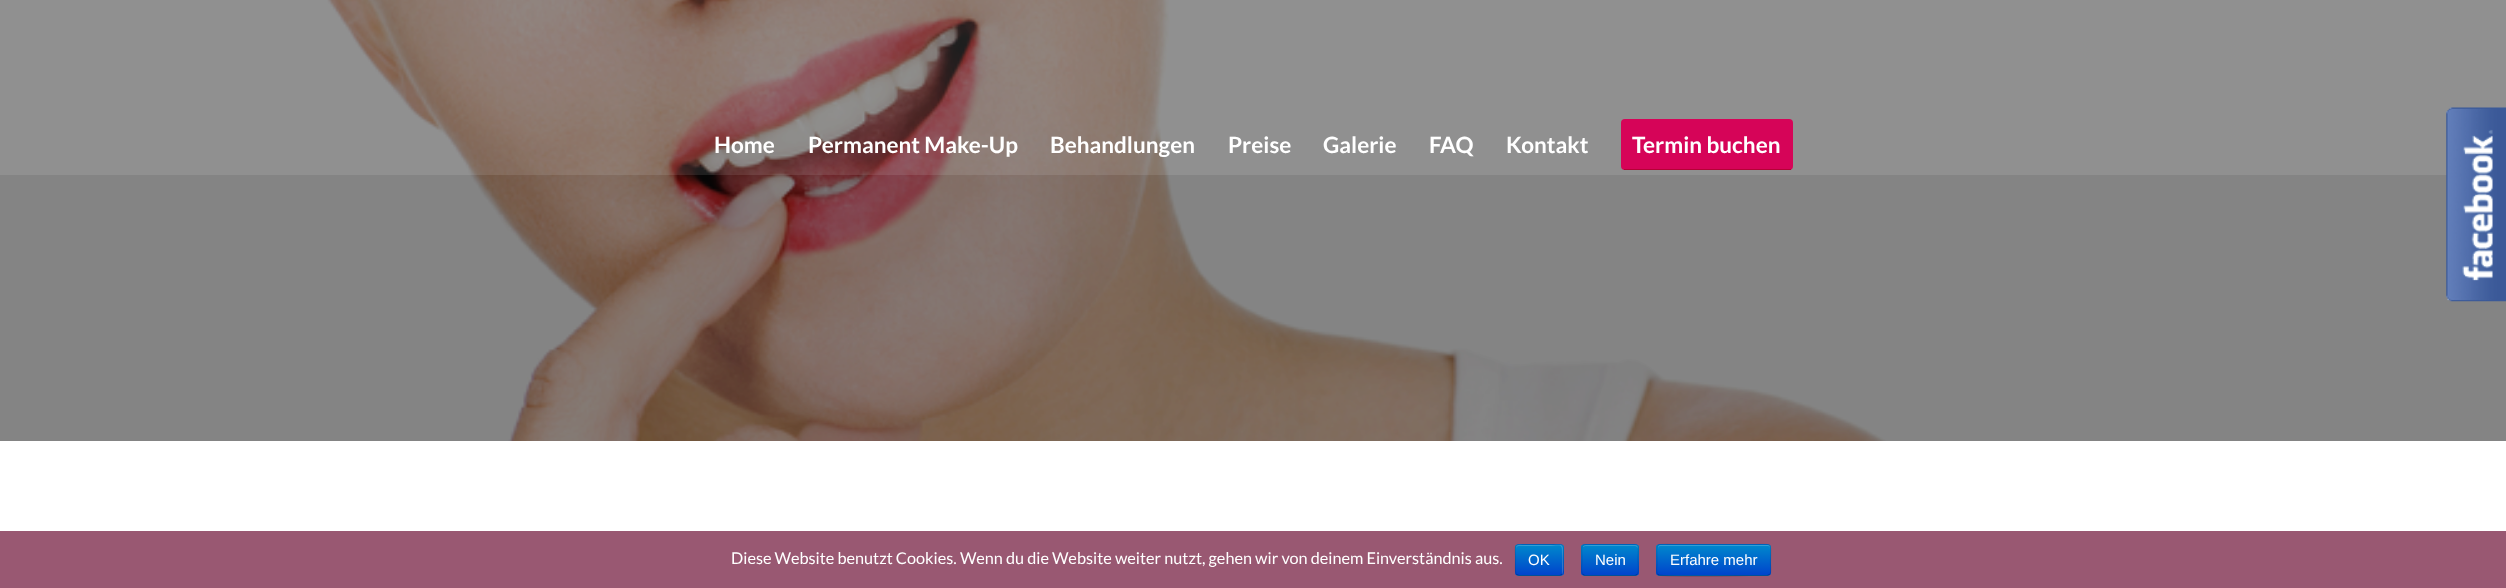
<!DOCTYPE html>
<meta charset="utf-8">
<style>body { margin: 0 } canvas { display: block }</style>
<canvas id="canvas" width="2506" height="588"></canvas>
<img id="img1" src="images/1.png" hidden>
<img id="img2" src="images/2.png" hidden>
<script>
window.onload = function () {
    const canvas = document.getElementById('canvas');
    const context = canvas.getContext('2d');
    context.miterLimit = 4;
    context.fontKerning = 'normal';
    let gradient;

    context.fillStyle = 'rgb(255, 255, 255)';
    context.fillRect(0, 0, 2506, 588);
    context.drawImage(document.getElementById('img1'), 0, 0, 2506, 441);
    context.fillStyle = 'rgba(255, 255, 255, 0.1)';
    context.fillRect(0, 0, 2506, 175);
    context.fillStyle = 'rgb(214, 4, 88)';
    context.beginPath();
    context.roundRect(1621, 119, 172, 51, 4);
    context.fill();
    context.fillStyle = 'rgb(180, 2, 54)';
    context.fillRect(1624, 169, 167, 1);
    context.drawImage(document.getElementById('img2'), 2446, 107, 60, 195);
    context.fillStyle = 'rgb(153, 88, 114)';
    context.fillRect(0, 531, 2506, 57);
    context.fillStyle = 'rgb(0, 109, 204)';
    context.beginPath();
    context.roundRect(1515, 544, 49, 32, 4);
    context.fill();
    context.save();
    context.beginPath();
    context.roundRect(1515, 544, 49, 32, 4);
    context.clip();
    gradient = context.createLinearGradient(1539, 545, 1539, 575);
    gradient.addColorStop(0, 'rgb(0, 136, 204)');
    gradient.addColorStop(1, 'rgb(0, 68, 204)');
    context.fillStyle = gradient;
    context.fillRect(1515, 545, 49, 30);
    context.restore();
    context.fillStyle = 'rgba(255, 255, 255, 0.2)';
    context.beginPath();
    context.moveTo(1519, 546);
    context.lineTo(1546, 546);
    context.bezierCurveTo(1563, 546, 1562, 542, 1562, 557);
    context.lineTo(1562, 575);
    context.bezierCurveTo(1564, 573, 1563, 563, 1563, 560);
    context.bezierCurveTo(1563, 541, 1566, 545, 1546, 545);
    context.lineTo(1526, 545);
    context.bezierCurveTo(1520, 545, 1516, 543, 1516, 549);
    context.bezierCurveTo(1516, 547, 1517, 546, 1519, 546);
    context.closePath();
    context.fill();
    context.beginPath();
    context.moveTo(1562, 574.5);
    context.lineTo(1560, 575.5);
    context.lineTo(1519, 575.5);
    context.lineTo(1516.5, 574.5);
    context.strokeStyle = 'rgba(0, 0, 0, 0.25)';
    context.lineWidth = 1.2;
    context.stroke();
    context.beginPath();
    context.moveTo(1516.5, 574.5);
    context.bezierCurveTo(1514.5, 572.5, 1515.5, 563, 1515.5, 560);
    context.bezierCurveTo(1515.5, 545, 1512, 544.5, 1525.5, 544.5);
    context.lineTo(1553, 544.5);
    context.bezierCurveTo(1566.5, 544.5, 1563, 545, 1563, 560);
    context.bezierCurveTo(1563, 563, 1564.5, 572.5, 1562, 574.5);
    context.strokeStyle = 'rgba(0, 0, 0, 0.1)';
    context.stroke();
    context.fillStyle = 'rgb(0, 109, 204)';
    context.beginPath();
    context.roundRect(1581, 544, 58, 32, 4);
    context.fill();
    context.save();
    context.beginPath();
    context.roundRect(1581, 544, 58, 32, 4);
    context.clip();
    gradient = context.createLinearGradient(1610, 545, 1610, 575);
    gradient.addColorStop(0, 'rgb(0, 136, 204)');
    gradient.addColorStop(1, 'rgb(0, 68, 204)');
    context.fillStyle = gradient;
    context.fillRect(1581, 545, 58, 30);
    context.restore();
    context.fillStyle = 'rgb(51, 159, 214)';
    context.beginPath();
    context.moveTo(1585, 546);
    context.lineTo(1635, 546);
    context.bezierCurveTo(1636, 546, 1638, 547, 1638, 549);
    context.lineTo(1638, 548);
    context.bezierCurveTo(1638, 546, 1637, 545, 1636, 545);
    context.lineTo(1586, 545);
    context.bezierCurveTo(1584, 545, 1583, 546, 1583, 547);
    context.closePath();
    context.fill();
    context.beginPath();
    context.moveTo(1637, 574.5);
    context.lineTo(1635.5, 575.5);
    context.lineTo(1584.5, 575.5);
    context.lineTo(1583, 574.5);
    context.strokeStyle = 'rgba(0, 0, 0, 0.25)';
    context.stroke();
    context.beginPath();
    context.moveTo(1583, 574.5);
    context.bezierCurveTo(1580.5, 572.5, 1582, 563, 1582, 560);
    context.bezierCurveTo(1582, 544, 1578.5, 544.5, 1593.5, 544.5);
    context.lineTo(1626.5, 544.5);
    context.bezierCurveTo(1641.5, 544.5, 1638, 544, 1638, 560);
    context.bezierCurveTo(1638, 563, 1639.5, 572.5, 1637, 574.5);
    context.strokeStyle = 'rgba(0, 0, 0, 0.1)';
    context.stroke();
    context.fillStyle = 'rgb(0, 109, 204)';
    context.beginPath();
    context.roundRect(1656, 544, 115, 32, 4);
    context.fill();
    context.save();
    context.beginPath();
    context.roundRect(1656, 544, 115, 32, 4);
    context.clip();
    gradient = context.createLinearGradient(1714, 545, 1714, 575);
    gradient.addColorStop(0, 'rgb(0, 136, 204)');
    gradient.addColorStop(1, 'rgb(0, 68, 204)');
    context.fillStyle = gradient;
    context.fillRect(1656, 545, 115, 30);
    context.restore();
    context.fillStyle = 'rgb(51, 159, 214)';
    context.beginPath();
    context.moveTo(1660, 546);
    context.lineTo(1768, 546);
    context.bezierCurveTo(1769, 546, 1770, 547, 1770, 549);
    context.lineTo(1770, 548);
    context.bezierCurveTo(1770, 546, 1769, 545, 1768, 545);
    context.lineTo(1660, 545);
    context.bezierCurveTo(1659, 545, 1658, 546, 1658, 548);
    context.lineTo(1658, 549);
    context.bezierCurveTo(1658, 547, 1659, 546, 1660, 546);
    context.closePath();
    context.fill();
    context.beginPath();
    context.moveTo(1769.5, 574.5);
    context.lineTo(1767.5, 575.5);
    context.lineTo(1749.5, 575.5);
    context.bezierCurveTo(1740, 575.5, 1660.5, 576.5, 1658.5, 575);
    context.lineTo(1658, 574.5);
    context.strokeStyle = 'rgba(0, 0, 0, 0.25)';
    context.stroke();
    context.beginPath();
    context.moveTo(1658, 574.5);
    context.bezierCurveTo(1655.5, 572.5, 1657, 566.5, 1657, 564);
    context.bezierCurveTo(1657, 540, 1652.5, 544.5, 1678, 544.5);
    context.lineTo(1749.5, 544.5);
    context.bezierCurveTo(1775, 544.5, 1770.5, 540, 1770.5, 564);
    context.bezierCurveTo(1770.5, 566.5, 1772, 572.5, 1769.5, 574.5);
    context.strokeStyle = 'rgba(0, 0, 0, 0.1)';
    context.stroke();
    context.font = 'bold 22.5px Lato';
    context.fillStyle = 'rgb(255, 255, 255)';
    context.fillText('Home', 714, 153);
    context.fillText('Permanent Make-Up', 808, 153);
    context.fillText('Behandlungen', 1050, 153);
    context.fillText('Preise', 1228, 153);
    context.fillText('Galerie', 1323, 153);
    context.fillText('FAQ', 1429, 153);
    context.fillText('Kontakt', 1506, 153);
    context.fillText('Termin buchen', 1632, 153);
    context.font = '16.25px Lato';
    context.fillText('Diese Website benutzt Cookies. Wenn du die Website weiter nutzt, gehen wir von deinem Einverständnis aus.', 731, 564);
    context.font = '15px Liberation Sans';
    context.fillText('OK', 1528, 565);
    context.fillText('Nein', 1595, 565);
    context.fillText('Erfahre mehr', 1670, 565);
};
</script>
